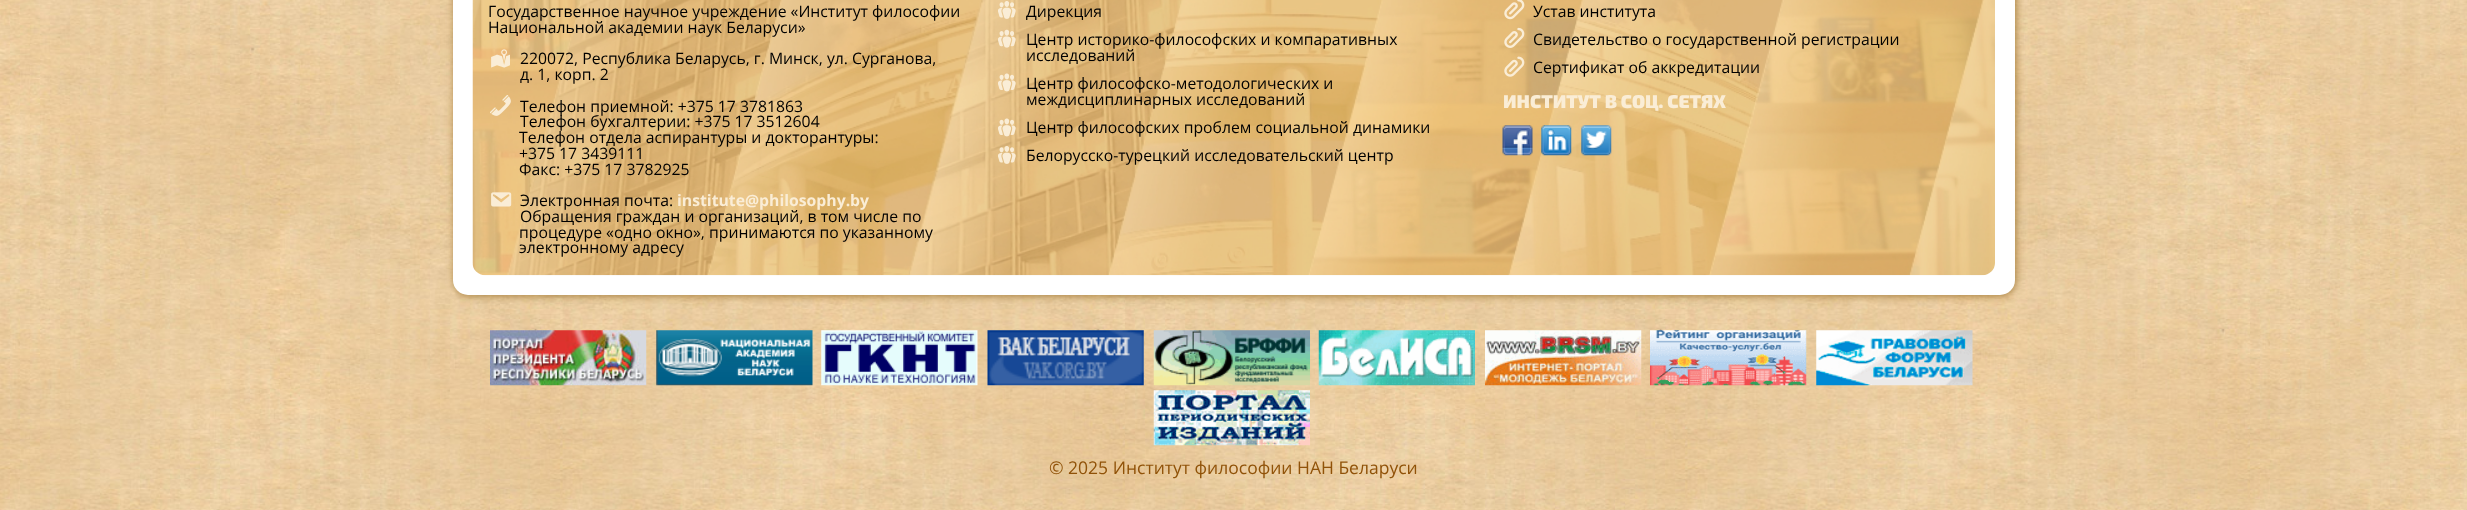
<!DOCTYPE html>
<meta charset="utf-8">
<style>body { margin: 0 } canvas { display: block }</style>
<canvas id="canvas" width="2467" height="510"></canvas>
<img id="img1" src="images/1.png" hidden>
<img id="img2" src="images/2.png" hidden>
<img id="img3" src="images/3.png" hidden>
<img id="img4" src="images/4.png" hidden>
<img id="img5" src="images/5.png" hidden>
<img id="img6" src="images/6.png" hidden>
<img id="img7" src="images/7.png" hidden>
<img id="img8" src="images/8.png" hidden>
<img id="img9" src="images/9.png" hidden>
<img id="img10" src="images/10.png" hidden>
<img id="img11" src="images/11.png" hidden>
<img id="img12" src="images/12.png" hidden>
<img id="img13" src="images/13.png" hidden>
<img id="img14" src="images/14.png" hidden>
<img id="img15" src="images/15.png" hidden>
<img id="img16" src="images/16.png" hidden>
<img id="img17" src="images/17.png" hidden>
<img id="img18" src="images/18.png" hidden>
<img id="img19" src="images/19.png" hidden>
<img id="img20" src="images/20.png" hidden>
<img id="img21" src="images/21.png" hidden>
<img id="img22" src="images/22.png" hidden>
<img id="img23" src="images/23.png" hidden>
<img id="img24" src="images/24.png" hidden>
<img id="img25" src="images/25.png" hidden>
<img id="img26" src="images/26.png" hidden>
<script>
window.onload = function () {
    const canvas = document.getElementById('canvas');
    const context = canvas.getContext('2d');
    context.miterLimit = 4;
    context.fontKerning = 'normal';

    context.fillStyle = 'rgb(255, 255, 255)';
    context.fillRect(0, 0, 2467, 510);
    context.drawImage(document.getElementById('img1'), 0, 0, 2467, 510);
    context.fillStyle = 'rgba(150, 110, 41, 0.85)';
    context.filter = 'blur(4.5px)';
    context.beginPath();
    context.roundRect(454, -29, 1562, 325, 15);
    context.fill();
    context.filter = 'none';
    context.fillStyle = 'rgb(255, 255, 255)';
    context.beginPath();
    context.roundRect(453, -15, 1562, 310, 15);
    context.fill();
    context.drawImage(document.getElementById('img2'), 472, 0, 1523, 276);
    context.drawImage(document.getElementById('img3'), 491, 49, 19, 19);
    context.drawImage(document.getElementById('img4'), 490, 95, 21, 21);
    context.drawImage(document.getElementById('img5'), 491, 192, 21, 15);
    context.drawImage(document.getElementById('img6'), 998, 1, 18, 18);
    context.drawImage(document.getElementById('img7'), 998, 29, 18, 19);
    context.drawImage(document.getElementById('img8'), 998, 73, 18, 19);
    context.drawImage(document.getElementById('img9'), 998, 118, 18, 19);
    context.drawImage(document.getElementById('img10'), 998, 146, 18, 18);
    context.drawImage(document.getElementById('img11'), 1504, 0, 21, 20);
    context.drawImage(document.getElementById('img12'), 1504, 27, 21, 21);
    context.drawImage(document.getElementById('img13'), 1504, 56, 21, 21);
    context.drawImage(document.getElementById('img14'), 1502, 125, 31, 31);
    context.drawImage(document.getElementById('img15'), 1541, 125, 31, 31);
    context.drawImage(document.getElementById('img16'), 1581, 125, 31, 31);
    context.drawImage(document.getElementById('img17'), 490, 330, 157, 56);
    context.drawImage(document.getElementById('img18'), 656, 330, 157, 56);
    context.drawImage(document.getElementById('img19'), 821, 330, 157, 56);
    context.drawImage(document.getElementById('img20'), 987, 330, 157, 56);
    context.drawImage(document.getElementById('img21'), 1153, 330, 157, 56);
    context.drawImage(document.getElementById('img22'), 1318, 330, 157, 56);
    context.drawImage(document.getElementById('img23'), 1485, 330, 157, 56);
    context.drawImage(document.getElementById('img24'), 1650, 330, 157, 56);
    context.drawImage(document.getElementById('img25'), 1816, 330, 157, 56);
    context.drawImage(document.getElementById('img26'), 1153, 390, 157, 56);
    context.font = '15.75px Open Sans';
    context.fillStyle = 'rgb(0, 0, 0)';
    context.fillText('Государственное научное учреждение «Институт философии', 488, 17);
    context.fillText('Национальной академии наук Беларуси»', 488, 33);
    context.fillText('220072, Республика Беларусь, г. Минск, ул. Сурганова,', 520, 64);
    context.fillText('д. 1, корп. 2', 520, 80);
    context.fillText('Телефон приемной: +375 17 3781863', 520, 112);
    context.fillText('Телефон бухгалтерии: +375 17 3512604', 520, 127);
    context.fillText('Телефон отдела аспирантуры и докторантуры:', 519, 143);
    context.fillText('+375 17 3439111', 519, 159);
    context.fillText('Факс: +375 17 3782925', 519, 175);
    context.fillText('Электронная почта:', 520, 206);
    context.font = 'bold 15.75px Open Sans';
    context.fillStyle = 'rgb(250, 237, 214)';
    context.fillText('institute@philosophy.by', 677, 206);
    context.font = '15.75px Open Sans';
    context.fillStyle = 'rgb(0, 0, 0)';
    context.fillText('Обращения граждан и организаций, в том числе по', 520, 222);
    context.fillText('процедуре «одно окно», принимаются по указанному', 519, 238);
    context.fillText('электронному адресу', 519, 253);
    context.fillText('Дирекция', 1026, 17);
    context.fillText('Центр историко-философских и компаративных', 1026, 45);
    context.fillText('исследований', 1026, 61);
    context.fillText('Центр философско-методологических и', 1026, 89);
    context.fillText('междисциплинарных исследований', 1026, 105);
    context.fillText('Центр философских проблем социальной динамики', 1026, 133);
    context.fillText('Белорусско-турецкий исследовательский центр', 1026, 161);
    context.fillText('Устав института', 1533, 17);
    context.fillText('Свидетельство о государственной регистрации', 1533, 45);
    context.fillText('Сертификат об аккредитации', 1533, 73);
    context.font = '900 18.5px "Exo 2"';
    context.fillStyle = 'rgb(250, 237, 214)';
    context.fillText('ИНСТИТУТ В СОЦ. СЕТЯХ', 1503, 108);
    context.font = '17.5px Open Sans';
    context.fillStyle = 'rgb(144, 82, 8)';
    context.fillText('© 2025 Институт философии НАН Беларуси', 1049, 474);
};
</script>
